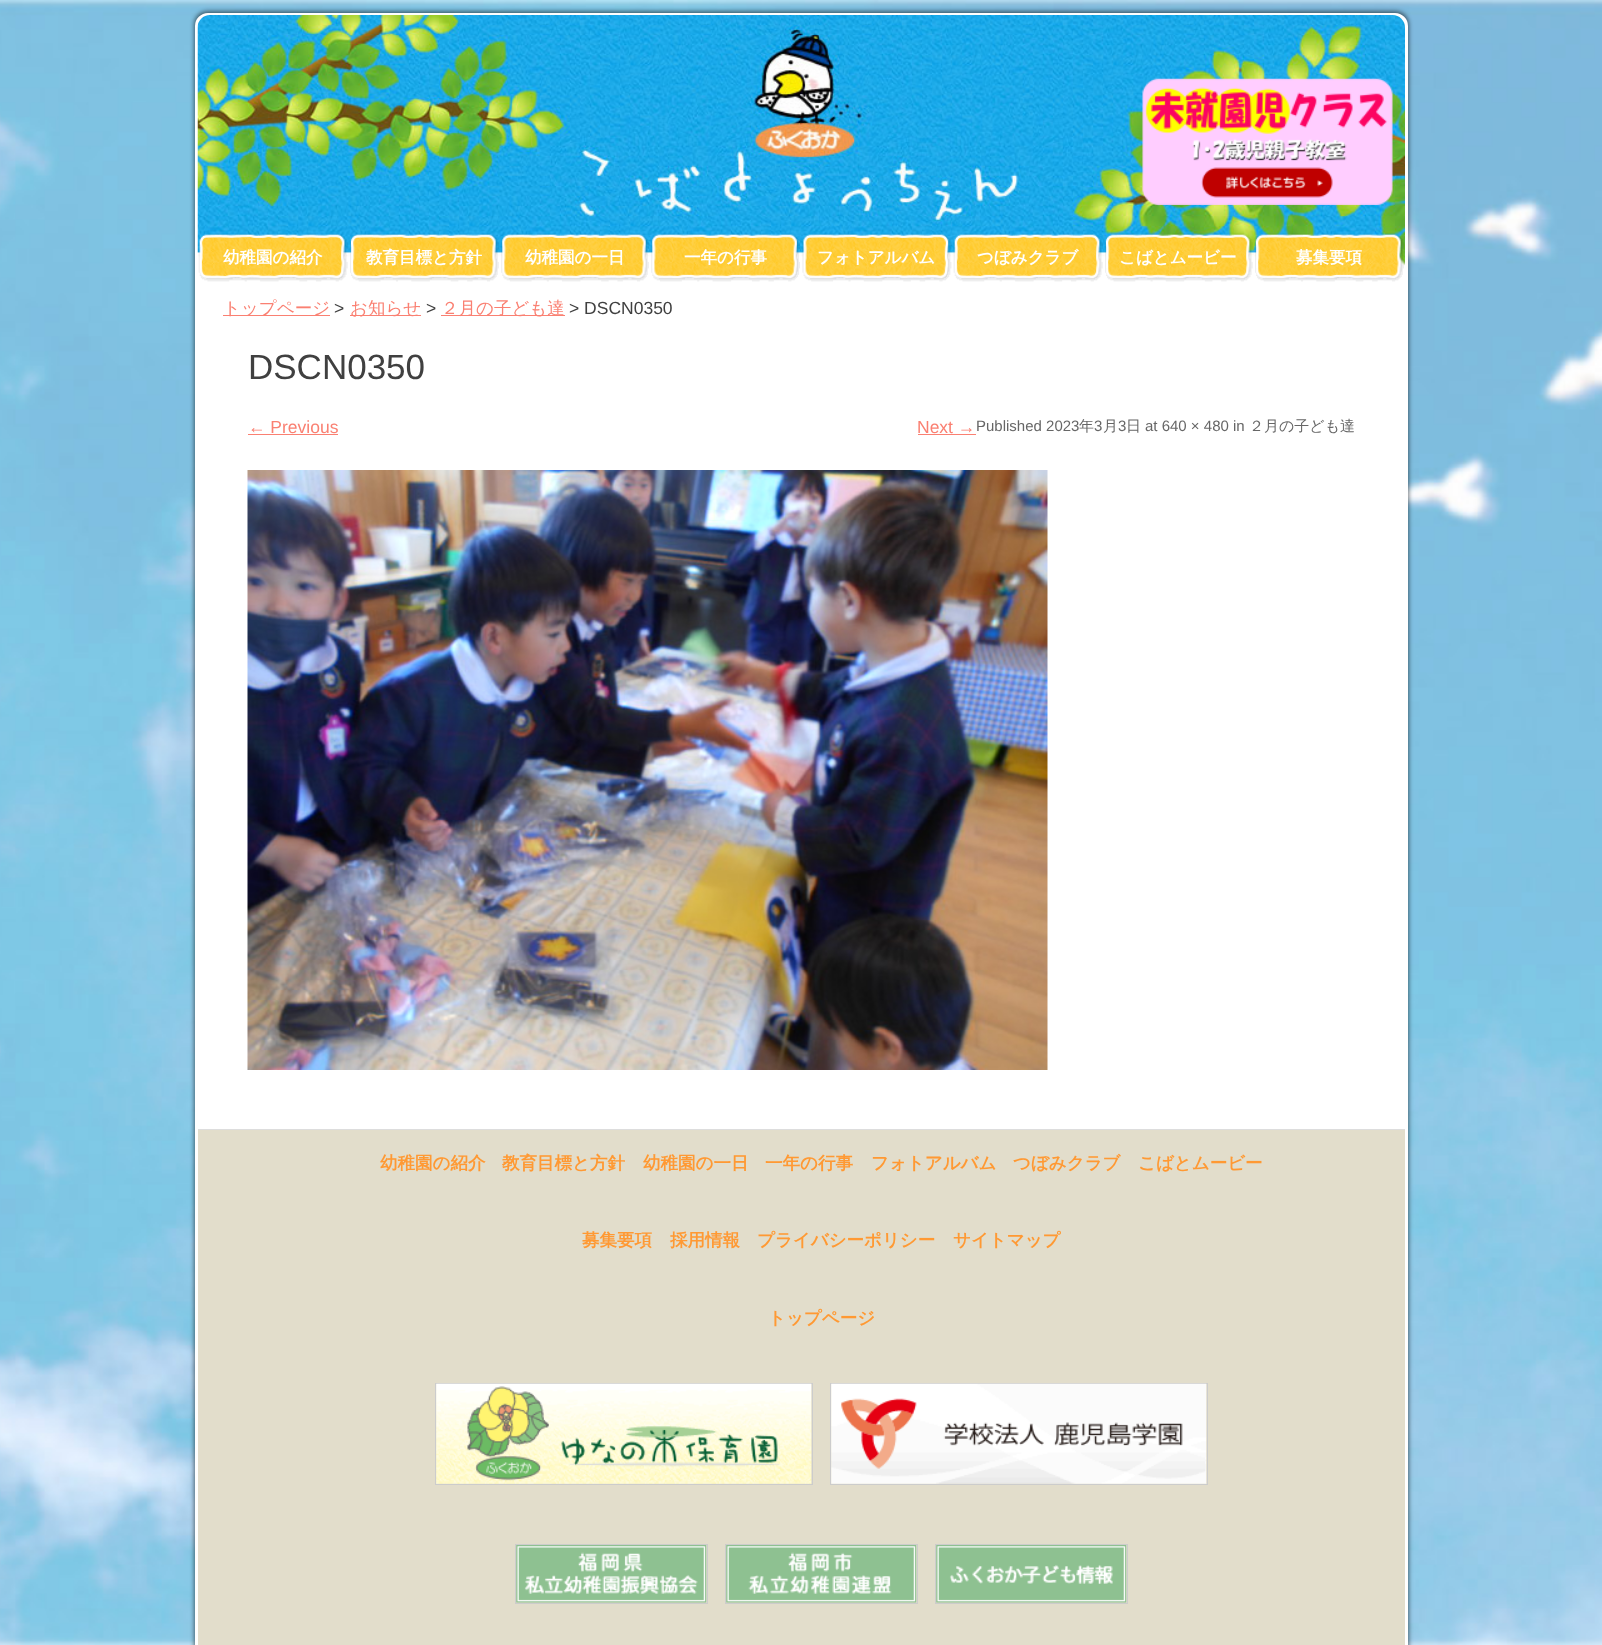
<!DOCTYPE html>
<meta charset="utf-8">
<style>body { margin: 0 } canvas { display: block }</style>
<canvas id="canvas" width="1602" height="1645"></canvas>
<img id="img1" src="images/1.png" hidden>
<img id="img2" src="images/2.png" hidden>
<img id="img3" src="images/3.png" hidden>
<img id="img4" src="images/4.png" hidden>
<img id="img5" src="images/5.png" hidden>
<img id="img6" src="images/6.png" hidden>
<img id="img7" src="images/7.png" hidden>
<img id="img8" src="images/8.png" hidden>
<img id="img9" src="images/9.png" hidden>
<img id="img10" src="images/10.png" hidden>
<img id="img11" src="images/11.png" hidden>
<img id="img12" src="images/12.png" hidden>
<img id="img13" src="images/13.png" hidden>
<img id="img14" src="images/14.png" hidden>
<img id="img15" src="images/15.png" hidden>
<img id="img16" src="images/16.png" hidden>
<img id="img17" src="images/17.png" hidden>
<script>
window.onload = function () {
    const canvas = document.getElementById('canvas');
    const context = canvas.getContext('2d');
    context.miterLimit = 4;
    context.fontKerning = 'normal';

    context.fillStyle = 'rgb(255, 255, 255)';
    context.fillRect(0, 0, 1602, 1645);
    context.drawImage(document.getElementById('img1'), 0, 0, 1602, 1645);
    context.fillStyle = 'rgba(0, 0, 0, 0.5)';
    context.filter = 'blur(2px)';
    context.beginPath();
    context.roundRect(194, 11, 1215, 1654, 14);
    context.fill();
    context.filter = 'none';
    context.fillStyle = 'rgb(255, 255, 255)';
    context.beginPath();
    context.roundRect(196.5, 14.5, 1210, 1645, 11.5);
    context.fill();
    context.strokeStyle = 'rgb(255, 255, 255)';
    context.lineWidth = 3;
    context.stroke();
    context.drawImage(document.getElementById('img2'), 197, 15, 1208, 255);
    context.drawImage(document.getElementById('img3'), 1142, 78, 251, 127);
    context.drawImage(document.getElementById('img4'), 198, 233, 150, 49);
    context.drawImage(document.getElementById('img5'), 350, 233, 149, 49);
    context.drawImage(document.getElementById('img6'), 501, 233, 148, 49);
    context.drawImage(document.getElementById('img7'), 651, 233, 149, 49);
    context.drawImage(document.getElementById('img8'), 802, 233, 150, 49);
    context.drawImage(document.getElementById('img9'), 953, 233, 150, 49);
    context.drawImage(document.getElementById('img10'), 1105, 233, 148, 49);
    context.drawImage(document.getElementById('img11'), 1255, 233, 149, 49);
    context.fillStyle = 'rgb(250, 128, 114)';
    context.fillRect(223, 315, 107, 1);
    context.fillRect(350, 315, 71, 1);
    context.fillRect(441, 315, 124, 1);
    context.fillStyle = 'rgb(221, 221, 221)';
    context.fillRect(198, 1129, 1207, 1);
    context.fillStyle = 'rgb(250, 128, 114)';
    context.fillRect(248, 434, 90, 1);
    context.fillRect(918, 434, 58, 1);
    context.drawImage(document.getElementById('img12'), 247, 470, 801, 600);
    context.fillStyle = 'rgb(226, 221, 203)';
    context.fillRect(198, 1130, 1207, 515);
    context.strokeStyle = 'rgb(204, 204, 204)';
    context.lineWidth = 1;
    context.strokeRect(435.5, 1383.5, 377, 101);
    context.drawImage(document.getElementById('img13'), 436, 1383, 376, 101);
    context.strokeRect(830.5, 1383.5, 377, 101);
    context.drawImage(document.getElementById('img14'), 831, 1383, 376, 101);
    context.strokeRect(515.5, 1544.5, 192, 59);
    context.drawImage(document.getElementById('img15'), 516, 1545, 191, 58);
    context.strokeRect(725.5, 1544.5, 192, 59);
    context.drawImage(document.getElementById('img16'), 726, 1545, 191, 58);
    context.strokeRect(935.5, 1544.5, 192, 59);
    context.drawImage(document.getElementById('img17'), 936, 1545, 191, 58);
    context.font = 'bold 16.5px WenQuanYi Zen Hei';
    context.fillStyle = 'rgb(255, 255, 255)';
    context.fillText('幼稚園の紹介', 223, 263);
    context.fillText('教育目標と方針', 366, 263);
    context.fillText('幼稚園の一日', 525, 263);
    context.fillText('一年の行事', 684, 263);
    context.fillText('フォトアルバム', 817, 263);
    context.fillText('つぼみクラブ', 977, 263);
    context.fillText('こばとムービー', 1119, 263);
    context.fillText('募集要項', 1296, 263);
    context.font = '500 17.5px WenQuanYi Zen Hei';
    context.fillStyle = 'rgb(250, 128, 114)';
    context.fillText('トップページ', 223, 314);
    context.font = '17.5px Liberation Sans';
    context.fillStyle = 'rgb(64, 64, 64)';
    context.fillText('>', 334, 314);
    context.font = '500 17.5px WenQuanYi Zen Hei';
    context.fillStyle = 'rgb(250, 128, 114)';
    context.fillText('お知らせ', 350, 314);
    context.font = '17.5px Liberation Sans';
    context.fillStyle = 'rgb(64, 64, 64)';
    context.fillText('>', 426, 314);
    context.font = '500 17.5px WenQuanYi Zen Hei';
    context.fillStyle = 'rgb(250, 128, 114)';
    context.fillText('２月の子ども達', 441, 314);
    context.font = '17.5px Liberation Sans';
    context.fillStyle = 'rgb(64, 64, 64)';
    context.fillText('> DSCN0350', 569, 314);
    context.font = '35px Liberation Sans';
    context.fillText('DSCN0350', 248, 379);
    context.font = '17.5px Liberation Sans';
    context.fillStyle = 'rgb(250, 128, 114)';
    context.fillText('← Previous', 248, 433);
    context.fillText('Next →', 917, 433);
    context.font = '15px Liberation Sans';
    context.fillStyle = 'rgb(102, 102, 102)';
    context.fillText('Published 2023', 976, 431);
    context.font = '500 15px WenQuanYi Zen Hei';
    context.fillText('年', 1079, 431);
    context.font = '15px Liberation Sans';
    context.fillText('3', 1094, 431);
    context.font = '500 15px WenQuanYi Zen Hei';
    context.fillText('月', 1103, 431);
    context.font = '15px Liberation Sans';
    context.fillText('3', 1118, 431);
    context.font = '500 15px WenQuanYi Zen Hei';
    context.fillText('日', 1126, 431);
    context.font = '15px Liberation Sans';
    context.fillText('at 640 × 480 in', 1145, 431);
    context.font = '500 15px WenQuanYi Zen Hei';
    context.fillText('２月の子ども達', 1249, 431);
    context.font = 'bold 17.5px WenQuanYi Zen Hei';
    context.fillStyle = 'rgb(255, 153, 51)';
    context.fillText('幼稚園の紹介', 380, 1169);
    context.fillText('教育目標と方針', 502, 1169);
    context.fillText('幼稚園の一日', 643, 1169);
    context.fillText('一年の行事', 765, 1169);
    context.fillText('フォトアルバム', 871, 1169);
    context.fillText('つぼみクラブ', 1013, 1169);
    context.fillText('こばとムービー', 1138, 1169);
    context.fillText('募集要項', 582, 1246);
    context.fillText('採用情報', 670, 1246);
    context.fillText('プライバシーポリシー', 757, 1246);
    context.fillText('サイトマップ', 953, 1246);
    context.fillText('トップページ', 768, 1324);
};
</script>
